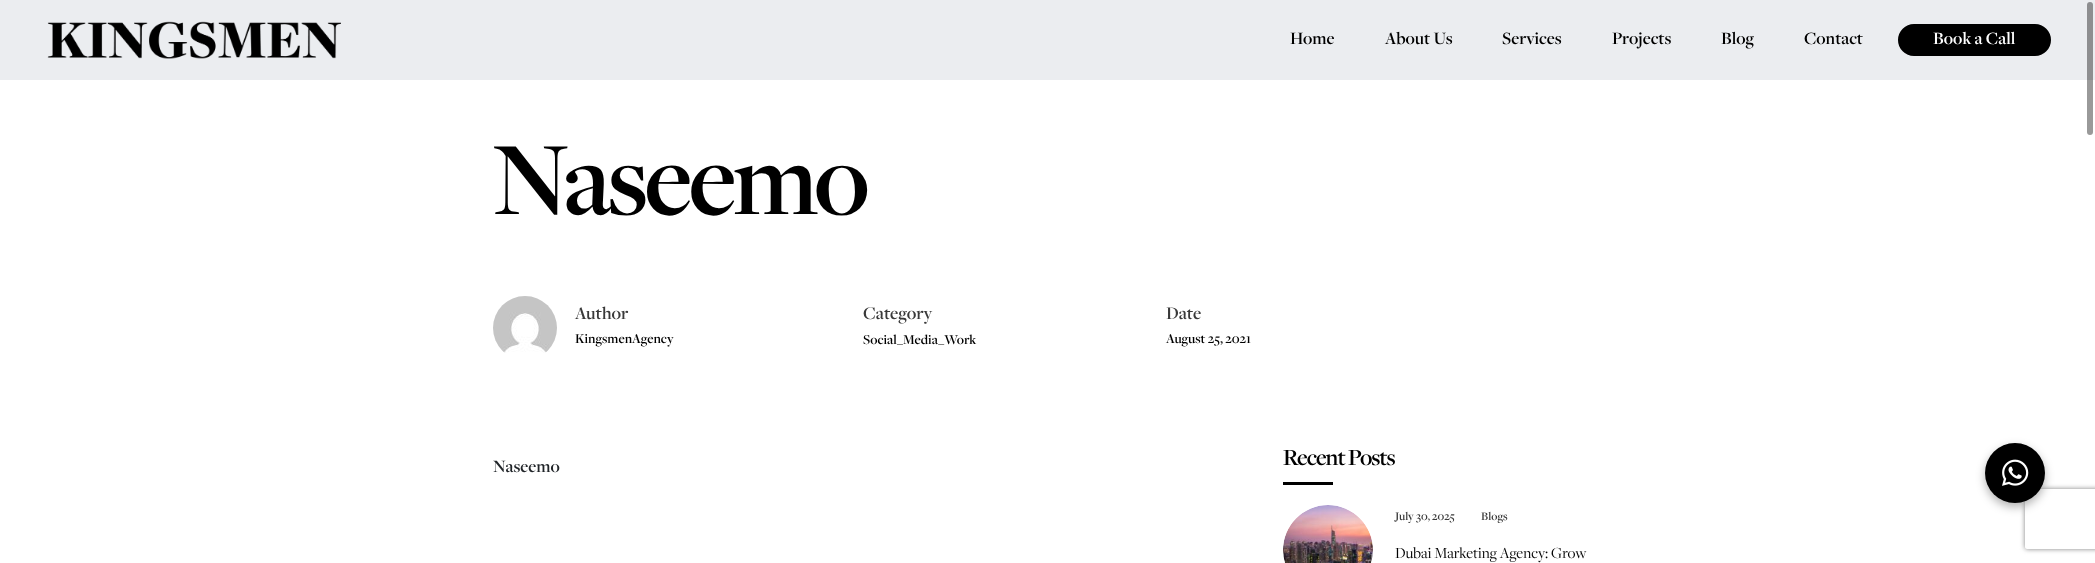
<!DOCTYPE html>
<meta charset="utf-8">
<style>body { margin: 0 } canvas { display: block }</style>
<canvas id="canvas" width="2095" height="563"></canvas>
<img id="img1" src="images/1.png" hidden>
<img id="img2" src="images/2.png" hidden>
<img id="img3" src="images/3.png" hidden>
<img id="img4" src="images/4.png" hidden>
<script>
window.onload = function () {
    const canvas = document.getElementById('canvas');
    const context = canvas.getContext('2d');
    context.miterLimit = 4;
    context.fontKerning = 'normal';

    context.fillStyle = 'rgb(255, 255, 255)';
    context.fillRect(0, 0, 2095, 563);
    context.fillStyle = 'rgb(235, 237, 240)';
    context.fillRect(0, 0, 2095, 80);
    context.drawImage(document.getElementById('img1'), 47, 21, 294, 38);
    context.fillStyle = 'rgb(0, 0, 0)';
    context.beginPath();
    context.roundRect(1900.5, 26.5, 148, 27, 13.5);
    context.fill();
    context.strokeStyle = 'rgb(0, 0, 0)';
    context.lineWidth = 5;
    context.stroke();
    context.drawImage(document.getElementById('img2'), 493, 296, 64, 57);
    context.fillRect(1283, 482, 50, 3);
    context.drawImage(document.getElementById('img3'), 1283, 505, 90, 58);
    context.fillStyle = 'rgba(0, 0, 0, 0.3)';
    context.filter = 'blur(5px)';
    context.beginPath();
    context.roundRect(1985, 447, 60, 60, 30);
    context.fill();
    context.filter = 'none';
    context.save();
    context.beginPath();
    context.moveTo(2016, 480);
    context.lineTo(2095, 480);
    context.lineTo(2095, 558);
    context.lineTo(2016, 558);
    context.closePath();
    context.moveTo(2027, 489);
    context.lineTo(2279, 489);
    context.bezierCurveTo(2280, 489, 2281, 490, 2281, 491);
    context.lineTo(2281, 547);
    context.bezierCurveTo(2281, 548, 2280, 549, 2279, 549);
    context.lineTo(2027, 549);
    context.bezierCurveTo(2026, 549, 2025, 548, 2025, 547);
    context.lineTo(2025, 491);
    context.bezierCurveTo(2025, 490, 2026, 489, 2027, 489);
    context.closePath();
    context.clip('evenodd');
    context.fillStyle = 'rgb(128, 128, 128)';
    context.filter = 'blur(2.5px)';
    context.beginPath();
    context.roundRect(2025, 489, 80, 60, 2);
    context.fill();
    context.filter = 'none';
    context.restore();
    context.fillStyle = 'rgb(0, 0, 0)';
    context.beginPath();
    context.arc(2015, 473, 30, 0, 2 * Math.PI);
    context.fill();
    context.drawImage(document.getElementById('img4'), 2002, 459, 27, 27);
    context.fillStyle = 'rgba(0, 0, 0, 0.4)';
    context.beginPath();
    context.roundRect(2087, 2, 6, 133, 3);
    context.fill();
    context.font = '600 18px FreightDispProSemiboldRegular';
    context.fillStyle = 'rgb(0, 0, 0)';
    context.fillText('Home', 1290, 44);
    context.fillText('About Us', 1385, 44);
    context.fillText('Services', 1502, 44);
    context.fillText('Projects', 1612, 44);
    context.fillText('Blog', 1721, 44);
    context.fillText('Contact', 1804, 44);
    context.fillStyle = 'rgb(255, 255, 255)';
    context.fillText('Book a Call', 1933, 44);
    context.letterSpacing = '-4px';
    context.font = '600 108px FreightDispProSemiboldRegular';
    context.fillStyle = 'rgb(0, 0, 0)';
    context.fillText('Naseemo', 493, 214);
    context.letterSpacing = '0px';
    context.font = '600 18.5px FreightDispProSemiboldRegular';
    context.fillStyle = 'rgb(57, 57, 57)';
    context.fillText('Author', 575, 319);
    context.font = '600 14px FreightDispProSemiboldRegular';
    context.fillStyle = 'rgb(0, 0, 0)';
    context.fillText('KingsmenAgency', 575, 343);
    context.font = '600 18.5px FreightDispProSemiboldRegular';
    context.fillStyle = 'rgb(57, 57, 57)';
    context.fillText('Category', 863, 319);
    context.font = '600 14px FreightDispProSemiboldRegular';
    context.fillStyle = 'rgb(0, 0, 0)';
    context.fillText('Social_Media_Work', 863, 344);
    context.font = '600 18.5px FreightDispProSemiboldRegular';
    context.fillStyle = 'rgb(57, 57, 57)';
    context.fillText('Date', 1166, 319);
    context.font = '600 14px FreightDispProSemiboldRegular';
    context.fillStyle = 'rgb(0, 0, 0)';
    context.fillText('August 25, 2021', 1166, 343);
    context.font = '600 18px FreightDispProSemiboldRegular';
    context.fillStyle = 'rgb(33, 37, 41)';
    context.fillText('Naseemo', 493, 472);
    context.letterSpacing = '-1px';
    context.font = '600 24px FreightDispProSemiboldRegular';
    context.fillStyle = 'rgb(0, 0, 0)';
    context.fillText('Recent Posts', 1283, 465);
    context.letterSpacing = '0px';
    context.font = '600 12px FreightDispProSemiboldRegular';
    context.fillStyle = 'rgb(57, 57, 57)';
    context.fillText('July 30, 2025', 1395, 520);
    context.fillText('Blogs', 1481, 520);
    context.font = '16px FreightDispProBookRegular';
    context.fillStyle = 'rgb(0, 0, 0)';
    context.fillText('Dubai Marketing Agency: Grow', 1395, 558);
};
</script>
